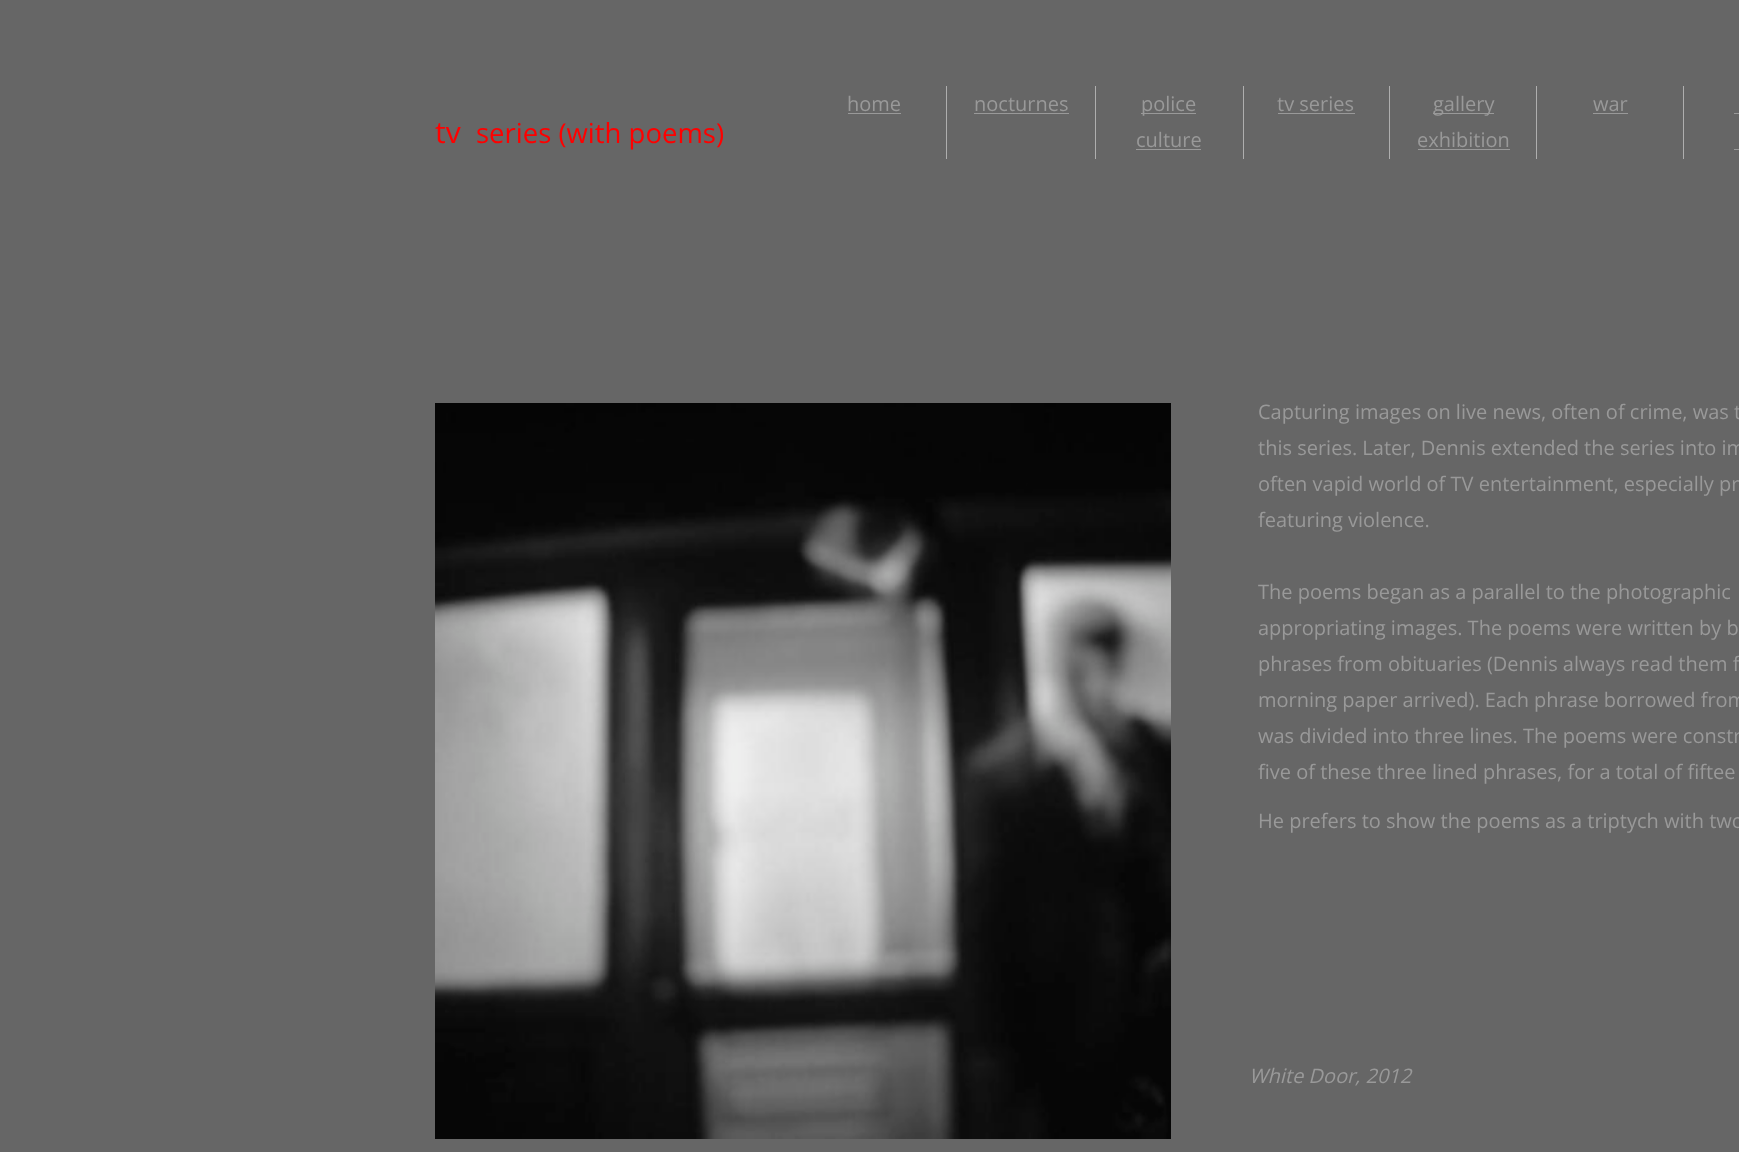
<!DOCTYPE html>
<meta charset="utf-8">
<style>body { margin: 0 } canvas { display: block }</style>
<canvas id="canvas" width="1739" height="1152"></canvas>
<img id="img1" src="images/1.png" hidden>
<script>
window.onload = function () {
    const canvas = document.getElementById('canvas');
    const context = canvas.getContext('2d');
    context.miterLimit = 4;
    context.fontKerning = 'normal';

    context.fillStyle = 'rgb(102, 102, 102)';
    context.fillRect(0, 0, 1739, 1152);
    context.fillStyle = 'rgb(174, 174, 174)';
    context.fillRect(946, 86, 1, 73);
    context.fillStyle = 'rgb(153, 153, 153)';
    context.fillRect(848, 113, 53, 1);
    context.fillStyle = 'rgb(174, 174, 174)';
    context.fillRect(1095, 86, 1, 73);
    context.fillStyle = 'rgb(153, 153, 153)';
    context.fillRect(974, 113, 95, 1);
    context.fillStyle = 'rgb(174, 174, 174)';
    context.fillRect(1243, 86, 1, 73);
    context.fillStyle = 'rgb(153, 153, 153)';
    context.fillRect(1141, 113, 55, 1);
    context.fillRect(1136, 149, 65, 1);
    context.fillStyle = 'rgb(174, 174, 174)';
    context.fillRect(1389, 86, 1, 73);
    context.fillStyle = 'rgb(153, 153, 153)';
    context.fillRect(1278, 113, 77, 1);
    context.fillStyle = 'rgb(174, 174, 174)';
    context.fillRect(1536, 86, 1, 73);
    context.fillStyle = 'rgb(153, 153, 153)';
    context.fillRect(1433, 113, 61, 1);
    context.fillRect(1418, 149, 92, 1);
    context.fillStyle = 'rgb(174, 174, 174)';
    context.fillRect(1683, 86, 1, 73);
    context.fillStyle = 'rgb(153, 153, 153)';
    context.fillRect(1593, 113, 35, 1);
    context.fillRect(1734, 113, 5, 1);
    context.fillRect(1734, 149, 5, 1);
    context.drawImage(document.getElementById('img1'), 435, 403, 736, 736);
    context.font = '30px Open Sans';
    context.fillStyle = 'rgb(255, 0, 0)';
    context.fillText('tv', 435, 143);
    context.font = '27.5px Open Sans';
    context.fillText('series (with poems)', 476, 143);
    context.font = '20px Open Sans';
    context.fillStyle = 'rgb(153, 153, 153)';
    context.fillText('home', 847, 111);
    context.fillText('nocturnes', 974, 111);
    context.fillText('police', 1141, 111);
    context.fillText('culture', 1136, 147);
    context.fillText('tv series', 1277, 111);
    context.fillText('gallery', 1433, 111);
    context.fillText('exhibition', 1417, 147);
    context.fillText('war', 1593, 111);
    context.fillText('Capturing images on live news, often of crime, was t', 1258, 419);
    context.fillText('this series. Later, Dennis extended the series into im', 1258, 455);
    context.fillText('often vapid world of TV entertainment, especially pr', 1258, 491);
    context.fillText('featuring violence.', 1258, 527);
    context.fillText('The poems began as a parallel to the photographic', 1258, 599);
    context.fillText('appropriating images. The poems were written by b', 1258, 635);
    context.fillText('phrases from obituaries (Dennis always read them f', 1258, 671);
    context.fillText('morning paper arrived). Each phrase borrowed from', 1258, 707);
    context.fillText('was divided into three lines. The poems were constr', 1258, 743);
    context.fillText('five of these three lined phrases, for a total of fiftee', 1258, 779);
    context.fillText('He prefers to show the poems as a triptych with two', 1258, 828);
    context.font = 'italic 20px Open Sans';
    context.fillText('White Door, 2012', 1249, 1083);
};
</script>
